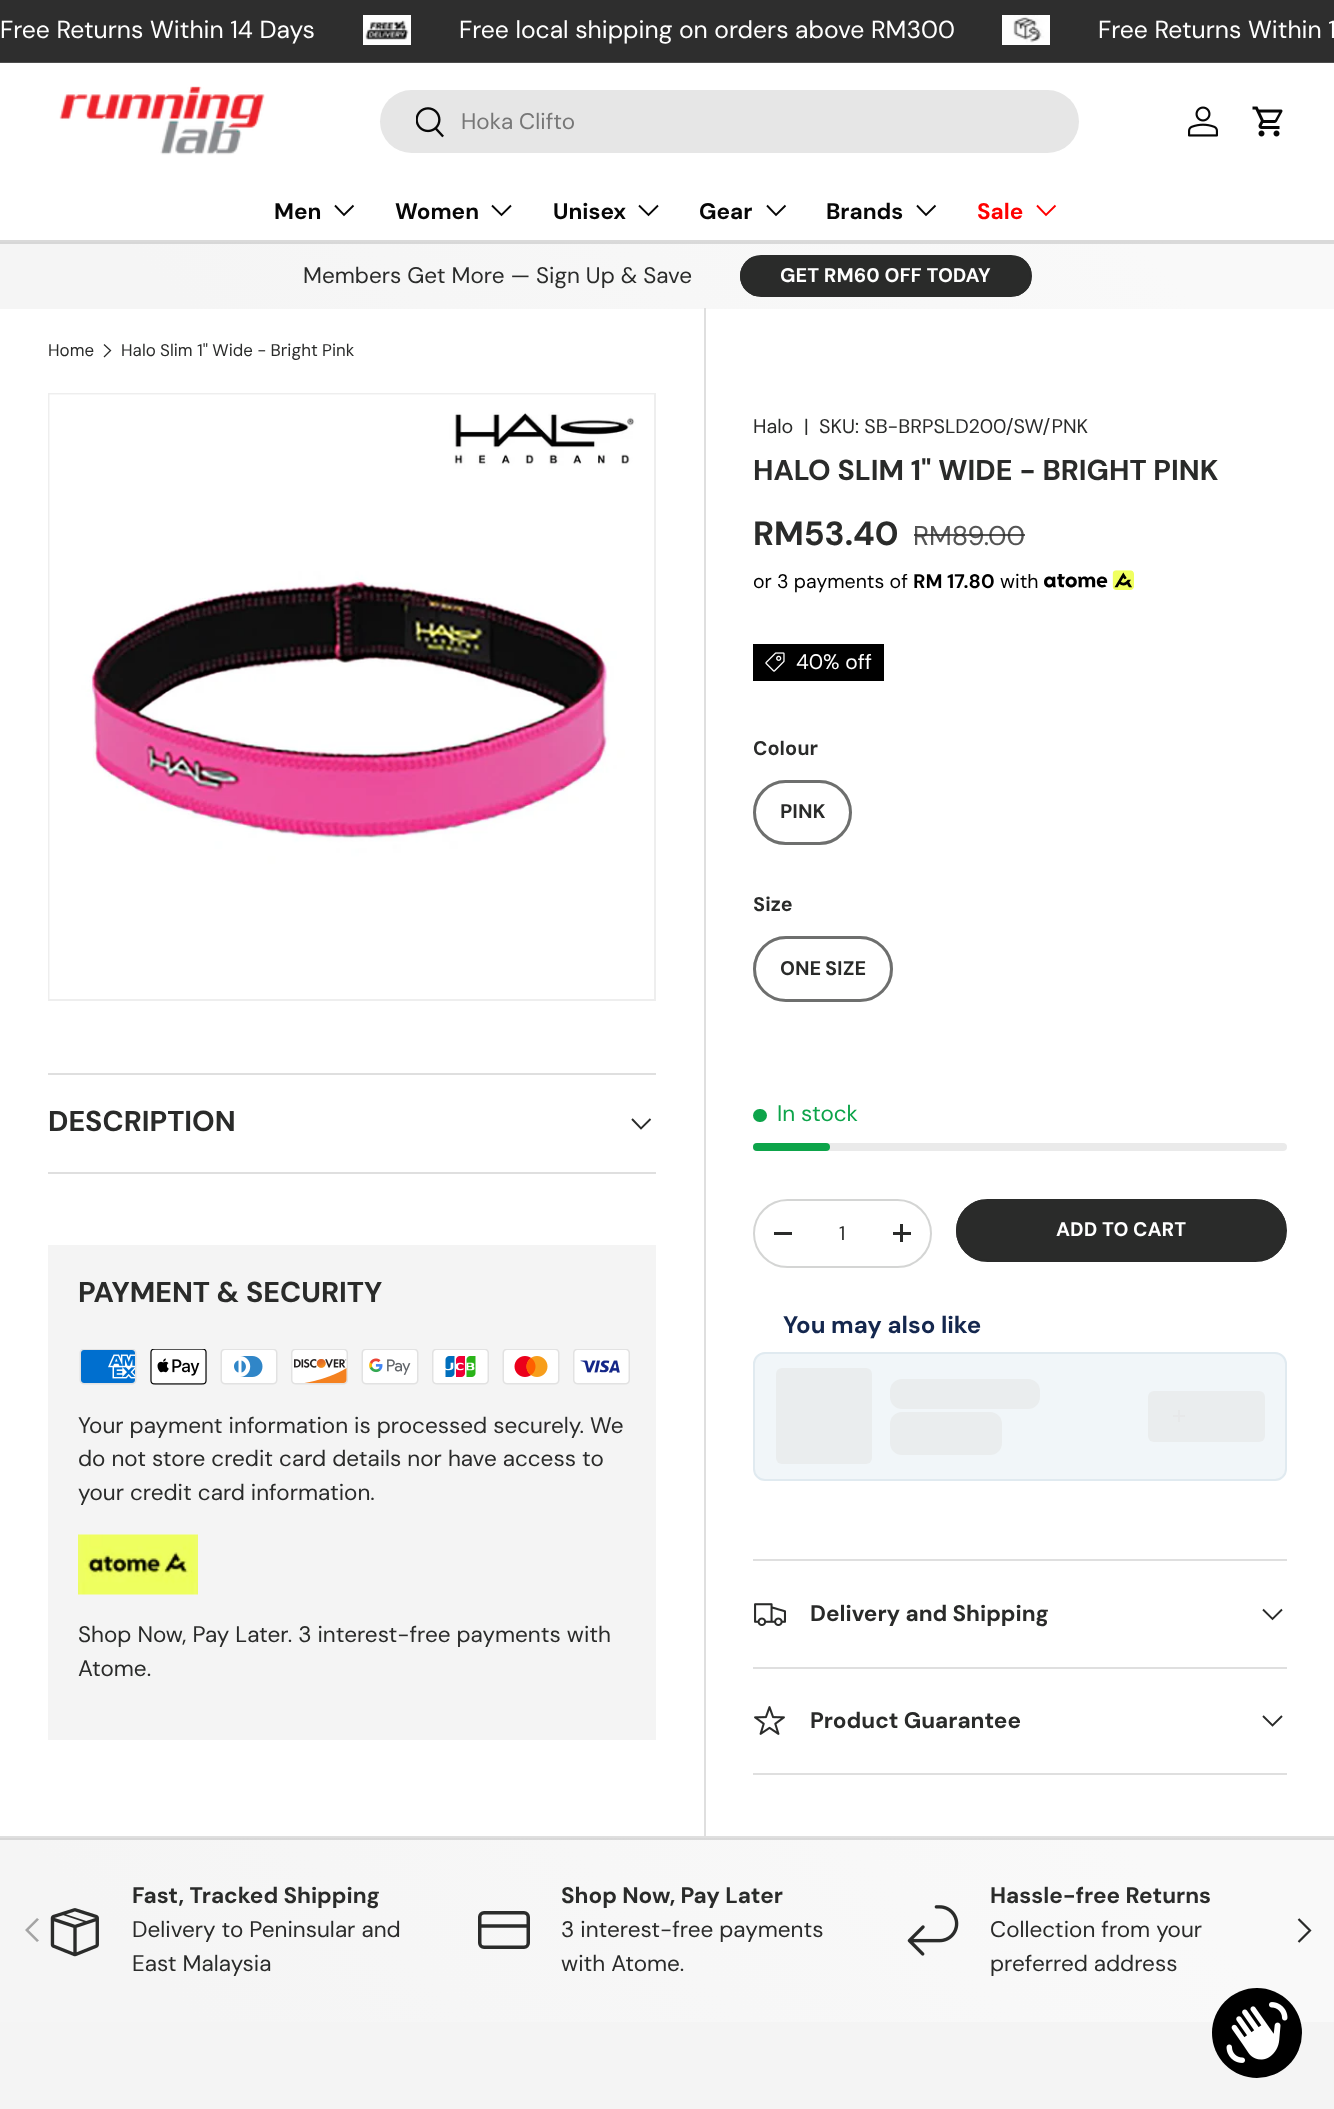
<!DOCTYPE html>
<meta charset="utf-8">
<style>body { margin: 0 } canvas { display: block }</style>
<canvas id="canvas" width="1334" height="2109"></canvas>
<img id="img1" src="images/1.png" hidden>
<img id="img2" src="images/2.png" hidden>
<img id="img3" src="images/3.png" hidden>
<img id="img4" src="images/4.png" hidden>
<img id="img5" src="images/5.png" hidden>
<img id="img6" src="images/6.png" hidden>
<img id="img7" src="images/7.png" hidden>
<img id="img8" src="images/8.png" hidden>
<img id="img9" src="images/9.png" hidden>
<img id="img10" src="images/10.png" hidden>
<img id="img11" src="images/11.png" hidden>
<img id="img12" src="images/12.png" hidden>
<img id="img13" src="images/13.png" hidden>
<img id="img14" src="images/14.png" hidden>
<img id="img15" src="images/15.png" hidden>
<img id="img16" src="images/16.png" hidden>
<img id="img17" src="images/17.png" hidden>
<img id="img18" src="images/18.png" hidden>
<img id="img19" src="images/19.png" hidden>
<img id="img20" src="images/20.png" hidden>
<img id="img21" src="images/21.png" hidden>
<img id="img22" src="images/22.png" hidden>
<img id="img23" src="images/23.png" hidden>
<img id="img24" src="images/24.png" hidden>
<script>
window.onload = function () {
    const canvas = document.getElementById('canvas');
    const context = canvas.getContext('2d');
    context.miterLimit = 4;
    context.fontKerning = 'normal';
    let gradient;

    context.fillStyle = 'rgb(255, 255, 255)';
    context.fillRect(0, 0, 1334, 2109);
    context.fillStyle = 'rgb(46, 46, 46)';
    context.fillRect(0, 0, 1334, 62);
    context.fillStyle = 'rgb(77, 77, 77)';
    context.fillRect(0, 62, 1334, 1);
    context.drawImage(document.getElementById('img1'), 363, 15, 48, 30);
    context.drawImage(document.getElementById('img2'), 1002, 15, 48, 30);
    context.fillStyle = 'rgb(218, 218, 218)';
    context.fillRect(0, 240, 1334, 2);
    context.drawImage(document.getElementById('img3'), 59, 86, 206, 69);
    context.fillStyle = 'rgb(230, 230, 230)';
    context.beginPath();
    context.roundRect(380, 90, 699, 63, 31.5);
    context.fill();
    context.drawImage(document.getElementById('img4'), 416, 107, 28, 31);
    context.drawImage(document.getElementById('img5'), 1188, 106, 30, 31);
    context.drawImage(document.getElementById('img6'), 1252, 106, 31, 31);
    context.beginPath();
    context.moveTo(353.5, 205.5);
    context.lineTo(344, 215);
    context.lineTo(335, 205.5);
    context.strokeStyle = 'rgb(7, 7, 7)';
    context.lineWidth = 1.9;
    context.stroke();
    context.beginPath();
    context.moveTo(511, 205.5);
    context.lineTo(501.5, 215);
    context.lineTo(492, 205.5);
    context.stroke();
    context.beginPath();
    context.moveTo(658, 205.5);
    context.lineTo(648.5, 215);
    context.lineTo(639, 205.5);
    context.stroke();
    context.beginPath();
    context.moveTo(785.5, 205.5);
    context.lineTo(776, 215);
    context.lineTo(767, 205.5);
    context.stroke();
    context.beginPath();
    context.moveTo(935.5, 205.5);
    context.lineTo(926, 215);
    context.lineTo(917, 205.5);
    context.stroke();
    context.beginPath();
    context.moveTo(1055.5, 205.5);
    context.lineTo(1046, 215);
    context.lineTo(1037, 205.5);
    context.strokeStyle = 'rgb(255, 0, 0)';
    context.stroke();
    gradient = context.createLinearGradient(306, 559, 1029, -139);
    gradient.addColorStop(0.13, 'rgb(215, 215, 215)');
    gradient.addColorStop(0.86, 'rgb(218, 218, 218)');
    context.fillStyle = gradient;
    context.fillRect(0, 242, 1334, 1);
    gradient = context.createLinearGradient(306, 625, 1029, -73);
    gradient.addColorStop(0.13, 'rgb(245, 245, 245)');
    gradient.addColorStop(0.86, 'rgb(249, 249, 249)');
    context.fillStyle = gradient;
    context.fillRect(0, 244, 1334, 65);
    gradient = context.createLinearGradient(306, 625, 1029, -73);
    gradient.addColorStop(0.13, 'rgb(215, 215, 215)');
    gradient.addColorStop(0.86, 'rgb(218, 218, 218)');
    context.fillStyle = gradient;
    context.fillRect(0, 243, 1334, 1);
    context.save();
    context.beginPath();
    context.roundRect(740, 255, 292, 42, 21);
    context.clip();
    gradient = context.createLinearGradient(183, 173, 1010, 379);
    gradient.addColorStop(0.6, 'rgb(82, 83, 82)');
    gradient.addColorStop(0.6, 'rgb(42, 43, 42)');
    gradient.addColorStop(1, 'rgb(42, 43, 42)');
    context.fillStyle = gradient;
    context.fillRect(740, 257, 291, 39);
    context.restore();
    context.beginPath();
    context.roundRect(741, 256, 290, 40, 20);
    context.strokeStyle = 'rgb(42, 43, 42)';
    context.lineWidth = 2;
    context.stroke();
    context.beginPath();
    context.moveTo(104, 344.5);
    context.lineTo(110.5, 350.5);
    context.lineTo(104, 357);
    context.lineWidth = 1.3;
    context.stroke();
    context.fillStyle = 'rgb(223, 223, 223)';
    context.fillRect(48, 1073, 608, 2);
    context.fillRect(48, 1172, 608, 2);
    context.beginPath();
    context.moveTo(650.5, 1119);
    context.lineTo(641, 1128.5);
    context.lineTo(632, 1119);
    context.lineWidth = 1.9;
    context.stroke();
    context.fillStyle = 'rgb(244, 244, 244)';
    context.fillRect(48, 1245, 608, 495);
    context.drawImage(document.getElementById('img7'), 79, 1349, 58, 36);
    context.drawImage(document.getElementById('img8'), 150, 1349, 57, 36);
    context.drawImage(document.getElementById('img9'), 220, 1349, 58, 36);
    context.drawImage(document.getElementById('img10'), 291, 1349, 57, 36);
    context.drawImage(document.getElementById('img11'), 361, 1349, 58, 36);
    context.drawImage(document.getElementById('img12'), 432, 1349, 57, 36);
    context.drawImage(document.getElementById('img13'), 502, 1349, 58, 36);
    context.drawImage(document.getElementById('img14'), 573, 1349, 57, 36);
    context.drawImage(document.getElementById('img15'), 78, 1534, 120, 61);
    context.strokeStyle = 'rgb(238, 238, 238)';
    context.lineWidth = 2;
    context.strokeRect(49, 394, 606, 606);
    context.drawImage(document.getElementById('img16'), 49, 394, 605, 605);
    context.fillStyle = 'rgb(223, 223, 223)';
    context.fillRect(0, 1836, 1334, 2);
    context.fillRect(704, 308, 2, 1530);
    context.drawImage(document.getElementById('img17'), 1044, 570, 90, 20);
    context.fillStyle = 'rgb(0, 0, 0)';
    context.fillRect(753, 644, 131, 37);
    context.drawImage(document.getElementById('img18'), 765, 652, 20, 20);
    context.beginPath();
    context.roundRect(754.5, 781.5, 96, 62, 31);
    context.strokeStyle = 'rgb(212, 213, 212)';
    context.lineWidth = 3;
    context.stroke();
    context.beginPath();
    context.roundRect(754.5, 781.5, 96, 62, 31);
    context.strokeStyle = 'rgba(42, 43, 42, 0.6)';
    context.stroke();
    context.beginPath();
    context.roundRect(754.5, 937.5, 137, 63, 31.5);
    context.strokeStyle = 'rgb(212, 213, 212)';
    context.stroke();
    context.beginPath();
    context.roundRect(754.5, 937.5, 137, 63, 31.5);
    context.strokeStyle = 'rgba(42, 43, 42, 0.6)';
    context.stroke();
    context.fillStyle = 'rgb(13, 164, 74)';
    context.beginPath();
    context.roundRect(753, 1109, 14, 13, 6.5);
    context.fill();
    context.fillStyle = 'rgb(234, 234, 234)';
    context.beginPath();
    context.roundRect(753, 1143, 534, 8, 4);
    context.fill();
    context.fillStyle = 'rgb(13, 164, 74)';
    context.beginPath();
    context.roundRect(753, 1143, 77, 8, 4);
    context.fill();
    context.beginPath();
    context.roundRect(754, 1200, 177, 67, 33.5);
    context.strokeStyle = 'rgb(212, 213, 212)';
    context.lineWidth = 2;
    context.stroke();
    context.fillStyle = 'rgb(42, 43, 42)';
    context.fillRect(774, 1232, 18, 3);
    context.fillRect(893, 1232, 18, 3);
    context.fillRect(900, 1224, 3, 18);
    context.save();
    context.beginPath();
    context.roundRect(956, 1199, 331, 63, 31.5);
    context.clip();
    gradient = context.createLinearGradient(322, 1113, 1264, 1347);
    gradient.addColorStop(0.6, 'rgb(82, 83, 82)');
    gradient.addColorStop(0.6, 'rgb(42, 43, 42)');
    gradient.addColorStop(1, 'rgb(42, 43, 42)');
    context.fillStyle = gradient;
    context.fillRect(956, 1200, 330, 60);
    context.restore();
    context.beginPath();
    context.roundRect(957, 1200, 329, 61, 30.5);
    context.strokeStyle = 'rgb(42, 43, 42)';
    context.stroke();
    context.fillStyle = 'rgb(241, 246, 249)';
    context.beginPath();
    context.roundRect(754, 1353, 532, 127, 11);
    context.fill();
    context.strokeStyle = 'rgb(224, 234, 240)';
    context.stroke();
    context.fillStyle = 'rgb(234, 237, 238)';
    context.beginPath();
    context.roundRect(776, 1368, 96, 96, 6);
    context.fill();
    context.beginPath();
    context.roundRect(890, 1379, 150, 30, 12);
    context.fill();
    context.beginPath();
    context.roundRect(890, 1412, 112, 43, 12);
    context.fill();
    context.beginPath();
    context.roundRect(1148, 1391, 117, 51, 6);
    context.fill();
    context.drawImage(document.getElementById('img19'), 1173, 1410, 12, 12);
    context.fillStyle = 'rgb(223, 223, 223)';
    context.fillRect(753, 1559, 534, 2);
    context.fillRect(753, 1667, 534, 2);
    context.drawImage(document.getElementById('img20'), 754, 1603, 32, 23);
    context.beginPath();
    context.moveTo(1282, 1609.5);
    context.lineTo(1272.5, 1619);
    context.lineTo(1263, 1609.5);
    context.strokeStyle = 'rgb(42, 43, 42)';
    context.lineWidth = 1.9;
    context.stroke();
    context.fillRect(753, 1773, 534, 2);
    context.drawImage(document.getElementById('img21'), 754, 1706, 31, 29);
    context.beginPath();
    context.moveTo(1282, 1716);
    context.lineTo(1272.5, 1725.5);
    context.lineTo(1263, 1716);
    context.stroke();
    gradient = context.createLinearGradient(276, 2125, 1059, 1370);
    gradient.addColorStop(0.13, 'rgb(215, 215, 215)');
    gradient.addColorStop(0.86, 'rgb(218, 218, 218)');
    context.fillStyle = gradient;
    context.fillRect(0, 1838, 1334, 1);
    gradient = context.createLinearGradient(276, 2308, 1059, 1553);
    gradient.addColorStop(0.13, 'rgb(245, 245, 245)');
    gradient.addColorStop(0.86, 'rgb(249, 249, 249)');
    context.fillStyle = gradient;
    context.fillRect(0, 1840, 1334, 182);
    gradient = context.createLinearGradient(276, 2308, 1059, 1553);
    gradient.addColorStop(0.13, 'rgb(215, 215, 215)');
    gradient.addColorStop(0.86, 'rgb(218, 218, 218)');
    context.fillStyle = gradient;
    context.fillRect(0, 1839, 1334, 1);
    context.drawImage(document.getElementById('img22'), 50, 1908, 49, 49);
    context.beginPath();
    context.roundRect(479.75, 1912.75, 48.5, 34.5, 4.25);
    context.lineWidth = 3.5;
    context.stroke();
    context.beginPath();
    context.moveTo(480, 1926);
    context.lineTo(528, 1926);
    context.lineWidth = 3.4;
    context.stroke();
    context.drawImage(document.getElementById('img23'), 907, 1905, 52, 51);
    context.fillStyle = 'rgb(164, 164, 164)';
    context.beginPath();
    context.moveTo(25, 1930);
    context.lineTo(37, 1918);
    context.lineTo(39, 1919.5);
    context.lineTo(28.5, 1930);
    context.lineTo(39, 1940.5);
    context.lineTo(37, 1942);
    context.closePath();
    context.fill();
    context.beginPath();
    context.moveTo(1298.5, 1919);
    context.lineTo(1310, 1930.5);
    context.lineTo(1298.5, 1942);
    context.lineWidth = 2.2;
    context.stroke();
    context.fillStyle = 'rgb(244, 244, 244)';
    context.fillRect(0, 2022, 1334, 87);
    context.fillStyle = 'rgb(0, 0, 0)';
    context.beginPath();
    context.arc(1257, 2033, 45, 0, 2 * Math.PI);
    context.fill();
    context.drawImage(document.getElementById('img24'), 1226, 2002, 62, 61);
    context.font = '24.7px "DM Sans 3"';
    context.fillStyle = 'rgb(255, 255, 255)';
    context.fillText('Free Returns Within 14 Days', 0, 38);
    context.fillText('Free local shipping on orders above RM300', 459, 38);
    context.fillText('Free Returns Within 1', 1098, 38);
    context.font = '22.5px DM Sans';
    context.fillStyle = 'rgb(119, 119, 119)';
    context.fillText('Hoka Clifto', 461, 129);
    context.font = 'bold 22.5px "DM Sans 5"';
    context.fillStyle = 'rgb(7, 7, 7)';
    context.fillText('Men', 274, 219);
    context.fillText('Women', 395, 219);
    context.fillText('Unisex', 553, 219);
    context.fillText('Gear', 699, 219);
    context.fillText('Brands', 826, 219);
    context.fillStyle = 'rgb(255, 0, 0)';
    context.fillText('Sale', 977, 219);
    context.font = '22.5px DM Sans';
    context.fillStyle = 'rgb(42, 43, 42)';
    context.fillText('Members Get More — Sign Up & Save', 303, 283);
    context.font = 'bold 19.75px "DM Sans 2"';
    context.fillStyle = 'rgb(255, 255, 255)';
    context.fillText('GET RM60 OFF TODAY', 780, 282);
    context.font = '16.9px "DM Sans 2"';
    context.fillStyle = 'rgb(42, 43, 42)';
    context.fillText('Home', 48, 356);
    context.wordSpacing = '-0.25px';
    context.fillText('Halo Slim 1" Wide - Bright Pink', 121, 356);
    context.wordSpacing = '0px';
    context.font = 'bold 28.75px DM Sans';
    context.fillText('DESCRIPTION', 48, 1131);
    context.fillText('PAYMENT & SECURITY', 78, 1302);
    context.font = '22.5px DM Sans';
    context.fillText('Your payment information is processed securely. We', 78, 1433);
    context.fillText('do not store credit card details nor have access to', 78, 1466);
    context.fillText('your credit card information.', 78, 1500);
    context.fillText('Shop Now, Pay Later. 3 interest-free payments with', 78, 1642);
    context.fillText('Atome.', 78, 1676);
    context.font = '19.75px "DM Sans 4"';
    context.fillText('Halo', 753, 433);
    context.fillText('|', 804, 433);
    context.fillText('SKU: SB-BRPSLD200/SW/PNK', 819, 433);
    context.font = 'bold 28.75px DM Sans';
    context.fillText('HALO SLIM 1" WIDE - BRIGHT PINK', 753, 480);
    context.font = 'bold 33.5px "DM Sans 3"';
    context.fillText('RM53.40', 753, 545);
    context.font = '27px "DM Sans 5"';
    context.fillStyle = 'rgb(85, 85, 85)';
    context.fillText('RM89.00', 913, 545);
    context.fillStyle = 'rgba(42, 43, 42, 0.8)';
    context.fillRect(914, 534, 111, 2);
    context.font = '19.5px "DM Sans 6"';
    context.fillStyle = 'rgb(0, 0, 0)';
    context.fillText('or 3 payments of', 753, 588);
    context.font = 'bold 19.5px "DM Sans 2"';
    context.fillText('RM', 913, 588);
    context.font = 'bold 19.5px "DM Sans 4"';
    context.fillText('17.80', 947, 588);
    context.font = '19.5px "DM Sans 6"';
    context.fillText('with', 1000, 588);
    context.font = '21px "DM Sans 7"';
    context.fillStyle = 'rgb(255, 255, 255)';
    context.fillText('40% off', 796, 669);
    context.font = 'bold 19.75px "DM Sans 2"';
    context.fillStyle = 'rgb(42, 43, 42)';
    context.fillText('Colour', 753, 755);
    context.fillText('PINK', 780, 818);
    context.fillText('Size', 753, 911);
    context.wordSpacing = '-1px';
    context.fillText('ONE SIZE', 780, 975);
    context.wordSpacing = '0px';
    context.font = '22.5px DM Sans';
    context.fillStyle = 'rgb(13, 164, 74)';
    context.fillText('In stock', 777, 1121);
    context.font = '19.75px "DM Sans 4"';
    context.fillStyle = 'rgb(42, 43, 42)';
    context.fillText('1', 839, 1240);
    context.font = 'bold 19.75px "DM Sans 2"';
    context.fillStyle = 'rgb(255, 255, 255)';
    context.fillText('ADD TO CART', 1056, 1236);
    context.font = 'bold 24px "DM Sans 6"';
    context.fillStyle = 'rgb(20, 39, 78)';
    context.fillText('You may also like', 783, 1333);
    context.font = 'bold 22.5px "DM Sans 5"';
    context.fillStyle = 'rgb(42, 43, 42)';
    context.fillText('Delivery and Shipping', 810, 1621);
    context.fillText('Product Guarantee', 810, 1728);
    context.fillText('Fast, Tracked Shipping', 132, 1903);
    context.font = '22.5px DM Sans';
    context.fillText('Delivery to Peninsular and', 132, 1937);
    context.fillText('East Malaysia', 132, 1971);
    context.font = 'bold 22.5px "DM Sans 5"';
    context.fillText('Shop Now, Pay Later', 561, 1903);
    context.font = '22.5px DM Sans';
    context.fillText('3 interest-free payments', 561, 1937);
    context.fillText('with Atome.', 561, 1971);
    context.font = 'bold 22.5px "DM Sans 5"';
    context.fillText('Hassle-free Returns', 990, 1903);
    context.font = '22.5px DM Sans';
    context.fillText('Collection from your', 990, 1937);
    context.fillText('preferred address', 990, 1971);
};
</script>
